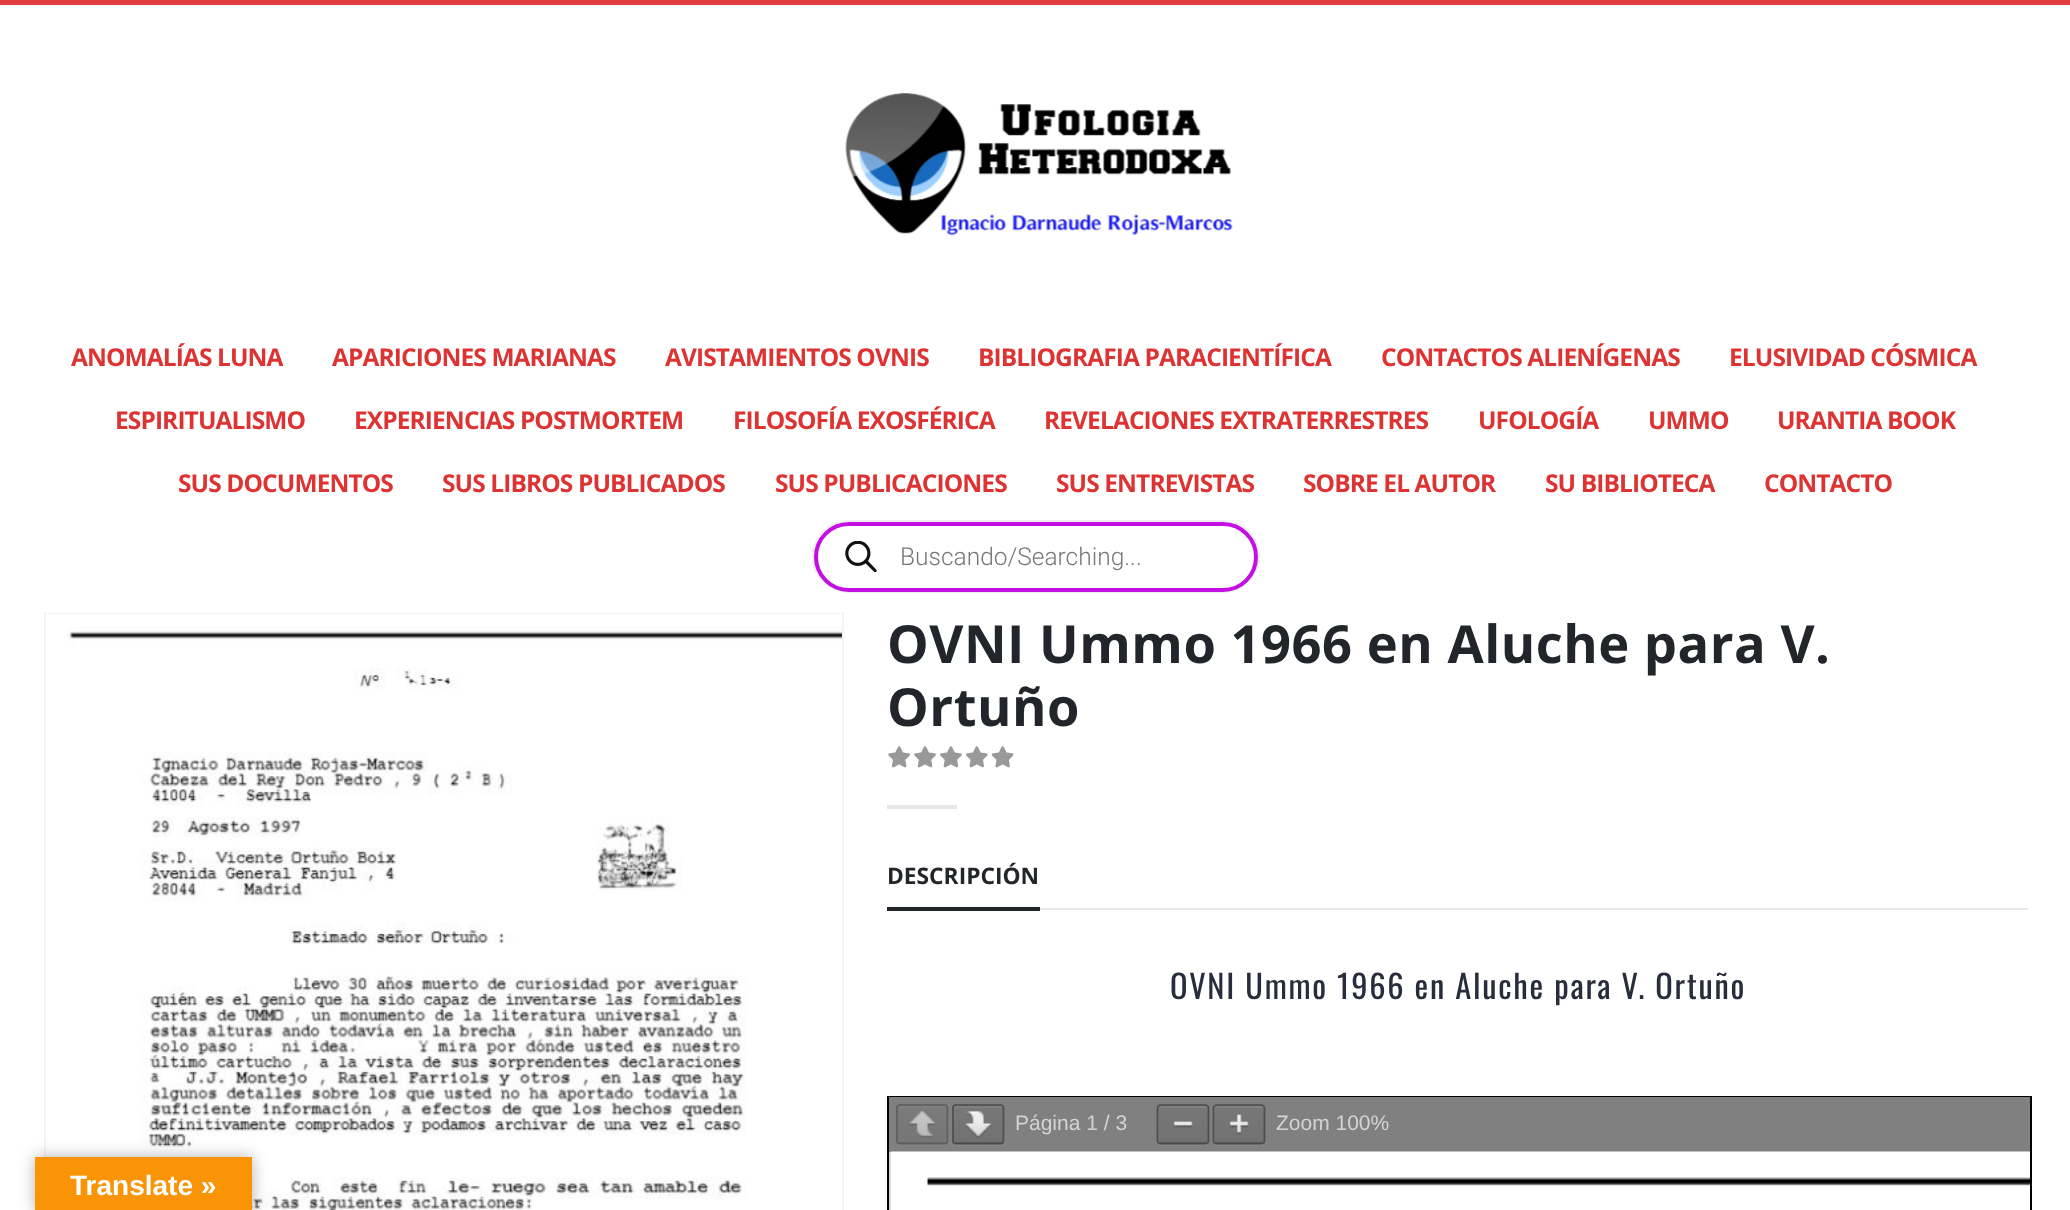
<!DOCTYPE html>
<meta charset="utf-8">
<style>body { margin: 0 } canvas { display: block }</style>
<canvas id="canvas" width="2070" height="1210"></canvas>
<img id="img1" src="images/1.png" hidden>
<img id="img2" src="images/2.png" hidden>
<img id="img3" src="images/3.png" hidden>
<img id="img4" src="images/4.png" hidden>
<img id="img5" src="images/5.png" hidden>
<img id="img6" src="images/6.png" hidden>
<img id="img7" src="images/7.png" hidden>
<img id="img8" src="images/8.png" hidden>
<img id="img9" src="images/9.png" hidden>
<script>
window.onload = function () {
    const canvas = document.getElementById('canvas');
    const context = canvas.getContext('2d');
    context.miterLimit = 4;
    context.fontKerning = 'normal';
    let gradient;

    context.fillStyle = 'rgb(255, 255, 255)';
    context.fillRect(0, 0, 2070, 1210);
    context.fillStyle = 'rgb(225, 59, 63)';
    context.fillRect(0, 0, 2070, 5);
    context.drawImage(document.getElementById('img1'), 845, 93, 388, 143);
    context.beginPath();
    context.roundRect(813, 521, 446, 71, 35.5);
    context.strokeStyle = 'rgb(238, 238, 238)';
    context.lineWidth = 2;
    context.stroke();
    context.fillStyle = 'rgb(255, 255, 255)';
    context.beginPath();
    context.roundRect(816, 524, 440, 66, 33);
    context.fill();
    context.strokeStyle = 'rgb(195, 15, 226)';
    context.lineWidth = 4;
    context.stroke();
    context.drawImage(document.getElementById('img2'), 845, 541, 32, 31);
    context.strokeStyle = 'rgb(244, 244, 244)';
    context.lineWidth = 2;
    context.strokeRect(45, 614, 798, 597);
    context.drawImage(document.getElementById('img3'), 46, 614, 796, 596);
    context.drawImage(document.getElementById('img4'), 888, 746, 125, 22);
    context.fillStyle = 'rgb(231, 231, 231)';
    context.fillRect(887, 805, 70, 4);
    context.fillStyle = 'rgb(34, 37, 41)';
    context.fillRect(887, 907, 153, 4);
    context.fillStyle = 'rgb(231, 231, 231)';
    context.fillRect(1040, 908, 988, 2);
    context.fillStyle = 'rgb(211, 211, 211)';
    context.fillRect(889, 1152, 2, 58);
    context.strokeStyle = 'rgb(0, 0, 0)';
    context.strokeRect(888, 1097, 1143, 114);
    context.fillStyle = 'rgb(128, 128, 128)';
    context.fillRect(889, 1097, 1141, 55);
    context.fillStyle = 'rgb(132, 132, 132)';
    context.beginPath();
    context.moveTo(896, 1141);
    context.bezierCurveTo(896, 1148, 903, 1146, 908, 1146);
    context.lineTo(930, 1146);
    context.bezierCurveTo(953, 1146, 949, 1149, 949, 1126);
    context.lineTo(949, 1115);
    context.bezierCurveTo(949, 1114, 950, 1110, 948, 1108);
    context.lineTo(948, 1141);
    context.bezierCurveTo(948, 1143, 947, 1144, 945, 1144);
    context.lineTo(900, 1144);
    context.bezierCurveTo(898, 1144, 896, 1143, 896, 1141);
    context.closePath();
    context.fill();
    gradient = context.createLinearGradient(922, 1106, 922, 1143);
    gradient.addColorStop(0, 'rgb(123, 123, 123)');
    gradient.addColorStop(1, 'rgb(118, 118, 118)');
    context.fillStyle = gradient;
    context.beginPath();
    context.roundRect(898, 1106, 49, 37, 2);
    context.fill();
    context.fillStyle = 'rgb(127, 127, 127)';
    context.beginPath();
    context.moveTo(900, 1108);
    context.lineTo(945, 1108);
    context.bezierCurveTo(946, 1108, 947, 1109, 947, 1110);
    context.bezierCurveTo(947, 1104, 944, 1106, 938, 1106);
    context.lineTo(908, 1106);
    context.bezierCurveTo(901, 1106, 898, 1104, 898, 1110);
    context.bezierCurveTo(898, 1109, 899, 1108, 900, 1108);
    context.closePath();
    context.fill();
    context.beginPath();
    context.moveTo(897.5, 1106);
    context.lineTo(899, 1105);
    context.lineTo(945.5, 1105);
    context.lineTo(947, 1106);
    context.strokeStyle = 'rgb(101, 101, 101)';
    context.lineWidth = 1.8;
    context.stroke();
    context.beginPath();
    context.moveTo(947, 1106);
    context.bezierCurveTo(947.5, 1106.5, 947.5, 1107, 947.5, 1108);
    context.lineTo(947.5, 1141);
    context.bezierCurveTo(947.5, 1141.5, 947.5, 1142.5, 947, 1143);
    context.strokeStyle = 'rgb(96, 96, 96)';
    context.stroke();
    context.beginPath();
    context.moveTo(947, 1143);
    context.lineTo(945.5, 1143.5);
    context.lineTo(899, 1143.5);
    context.lineTo(897.5, 1143);
    context.strokeStyle = 'rgba(45, 45, 45, 0.42)';
    context.stroke();
    context.beginPath();
    context.moveTo(897.5, 1143);
    context.bezierCurveTo(897, 1142.5, 897, 1141.5, 897, 1141);
    context.lineTo(897, 1108);
    context.bezierCurveTo(897, 1107, 897, 1106.5, 897.5, 1106);
    context.strokeStyle = 'rgba(45, 45, 45, 0.38)';
    context.stroke();
    context.drawImage(document.getElementById('img5'), 909, 1111, 26, 27);
    context.fillStyle = 'rgb(134, 134, 134)';
    context.beginPath();
    context.moveTo(952, 1141);
    context.bezierCurveTo(952, 1148, 959, 1146, 964, 1146);
    context.lineTo(986, 1146);
    context.bezierCurveTo(1009, 1146, 1005, 1149, 1005, 1126);
    context.lineTo(1005, 1115);
    context.bezierCurveTo(1005, 1114, 1006, 1110, 1004, 1108);
    context.lineTo(1004, 1141);
    context.bezierCurveTo(1004, 1143, 1003, 1144, 1001, 1144);
    context.lineTo(956, 1144);
    context.bezierCurveTo(954, 1144, 952, 1143, 952, 1141);
    context.closePath();
    context.fill();
    gradient = context.createLinearGradient(978, 1106, 978, 1143);
    gradient.addColorStop(0, 'rgb(120, 120, 120)');
    gradient.addColorStop(1, 'rgb(113, 113, 113)');
    context.fillStyle = gradient;
    context.beginPath();
    context.roundRect(954, 1106, 49, 37, 2);
    context.fill();
    context.fillStyle = 'rgb(127, 127, 127)';
    context.beginPath();
    context.moveTo(956, 1108);
    context.lineTo(1001, 1108);
    context.bezierCurveTo(1002, 1108, 1003, 1109, 1003, 1110);
    context.bezierCurveTo(1003, 1104, 1000, 1106, 994, 1106);
    context.lineTo(964, 1106);
    context.bezierCurveTo(957, 1106, 954, 1104, 954, 1110);
    context.bezierCurveTo(954, 1109, 955, 1108, 956, 1108);
    context.closePath();
    context.fill();
    context.beginPath();
    context.moveTo(953.5, 1106);
    context.lineTo(955, 1105);
    context.lineTo(1001.5, 1105);
    context.lineTo(1003, 1106);
    context.strokeStyle = 'rgb(87, 87, 87)';
    context.stroke();
    context.beginPath();
    context.moveTo(1003, 1106);
    context.bezierCurveTo(1003.5, 1106.5, 1003.5, 1107, 1003.5, 1108);
    context.lineTo(1003.5, 1141);
    context.bezierCurveTo(1003.5, 1141.5, 1003.5, 1142.5, 1003, 1143);
    context.strokeStyle = 'rgb(79, 79, 79)';
    context.stroke();
    context.beginPath();
    context.moveTo(1003, 1143);
    context.lineTo(1001.5, 1143.5);
    context.lineTo(955, 1143.5);
    context.lineTo(953.5, 1143);
    context.strokeStyle = 'rgba(0, 0, 0, 0.42)';
    context.stroke();
    context.beginPath();
    context.moveTo(953.5, 1143);
    context.bezierCurveTo(953, 1142.5, 953, 1141.5, 953, 1141);
    context.lineTo(953, 1108);
    context.bezierCurveTo(953, 1107, 953, 1106.5, 953.5, 1106);
    context.strokeStyle = 'rgba(0, 0, 0, 0.38)';
    context.stroke();
    context.drawImage(document.getElementById('img6'), 965, 1111, 26, 27);
    context.fillStyle = 'rgb(134, 134, 134)';
    context.beginPath();
    context.moveTo(1157, 1142);
    context.bezierCurveTo(1157, 1144, 1159, 1146, 1161, 1146);
    context.lineTo(1205, 1146);
    context.bezierCurveTo(1207, 1146, 1209, 1144, 1209, 1142);
    context.bezierCurveTo(1208, 1144, 1207, 1144, 1206, 1144);
    context.lineTo(1160, 1144);
    context.bezierCurveTo(1159, 1144, 1158, 1144, 1157, 1142);
    context.closePath();
    context.fill();
    gradient = context.createLinearGradient(1183, 1106, 1183, 1143);
    gradient.addColorStop(0, 'rgb(120, 120, 120)');
    gradient.addColorStop(1, 'rgb(113, 113, 113)');
    context.fillStyle = gradient;
    context.beginPath();
    context.roundRect(1159, 1106, 49, 37, 2);
    context.fill();
    context.fillStyle = 'rgb(127, 127, 127)';
    context.beginPath();
    context.moveTo(1160, 1108);
    context.lineTo(1206, 1108);
    context.bezierCurveTo(1207, 1108, 1208, 1109, 1208, 1110);
    context.bezierCurveTo(1208, 1104, 1205, 1106, 1198, 1106);
    context.lineTo(1184, 1106);
    context.bezierCurveTo(1180, 1106, 1161, 1105, 1160, 1107);
    context.lineTo(1159, 1108);
    context.closePath();
    context.fill();
    context.beginPath();
    context.moveTo(1158.5, 1106);
    context.lineTo(1160, 1105);
    context.lineTo(1206, 1105);
    context.lineTo(1207.5, 1106);
    context.strokeStyle = 'rgb(87, 87, 87)';
    context.stroke();
    context.beginPath();
    context.moveTo(1207.5, 1106);
    context.bezierCurveTo(1208, 1106.5, 1208.5, 1107, 1208.5, 1108);
    context.lineTo(1208.5, 1141);
    context.bezierCurveTo(1208.5, 1141.5, 1208, 1142.5, 1207.5, 1143);
    context.strokeStyle = 'rgba(0, 0, 0, 0.38)';
    context.stroke();
    context.beginPath();
    context.moveTo(1207.5, 1143);
    context.lineTo(1206, 1143.5);
    context.lineTo(1160, 1143.5);
    context.lineTo(1158.5, 1143);
    context.strokeStyle = 'rgba(0, 0, 0, 0.42)';
    context.stroke();
    context.beginPath();
    context.moveTo(1158.5, 1143);
    context.bezierCurveTo(1158, 1142.5, 1157.5, 1141.5, 1157.5, 1141);
    context.lineTo(1157.5, 1108);
    context.bezierCurveTo(1157.5, 1107, 1158, 1106.5, 1158.5, 1106);
    context.strokeStyle = 'rgba(0, 0, 0, 0.38)';
    context.stroke();
    context.drawImage(document.getElementById('img7'), 1173, 1121, 20, 7);
    context.fillStyle = 'rgb(134, 134, 134)';
    context.beginPath();
    context.moveTo(1213, 1142);
    context.bezierCurveTo(1213, 1144, 1215, 1146, 1217, 1146);
    context.lineTo(1261, 1146);
    context.bezierCurveTo(1263, 1146, 1265, 1144, 1265, 1142);
    context.bezierCurveTo(1264, 1144, 1263, 1144, 1262, 1144);
    context.lineTo(1216, 1144);
    context.bezierCurveTo(1215, 1144, 1214, 1144, 1213, 1142);
    context.closePath();
    context.fill();
    gradient = context.createLinearGradient(1239, 1106, 1239, 1143);
    gradient.addColorStop(0, 'rgb(120, 120, 120)');
    gradient.addColorStop(1, 'rgb(113, 113, 113)');
    context.fillStyle = gradient;
    context.beginPath();
    context.roundRect(1215, 1106, 49, 37, 2);
    context.fill();
    context.fillStyle = 'rgb(127, 127, 127)';
    context.beginPath();
    context.moveTo(1216, 1108);
    context.lineTo(1262, 1108);
    context.bezierCurveTo(1263, 1108, 1264, 1109, 1264, 1110);
    context.bezierCurveTo(1264, 1104, 1261, 1106, 1254, 1106);
    context.lineTo(1240, 1106);
    context.bezierCurveTo(1236, 1106, 1217, 1105, 1216, 1107);
    context.lineTo(1215, 1108);
    context.closePath();
    context.fill();
    context.beginPath();
    context.moveTo(1214.5, 1106);
    context.lineTo(1216, 1105);
    context.lineTo(1262, 1105);
    context.lineTo(1263.5, 1106);
    context.strokeStyle = 'rgb(87, 87, 87)';
    context.stroke();
    context.beginPath();
    context.moveTo(1263.5, 1106);
    context.bezierCurveTo(1264, 1106.5, 1264.5, 1107, 1264.5, 1108);
    context.lineTo(1264.5, 1141);
    context.bezierCurveTo(1264.5, 1141.5, 1264, 1142.5, 1263.5, 1143);
    context.strokeStyle = 'rgba(0, 0, 0, 0.38)';
    context.stroke();
    context.beginPath();
    context.moveTo(1263.5, 1143);
    context.lineTo(1262, 1143.5);
    context.lineTo(1216, 1143.5);
    context.lineTo(1214.5, 1143);
    context.strokeStyle = 'rgba(0, 0, 0, 0.42)';
    context.stroke();
    context.beginPath();
    context.moveTo(1214.5, 1143);
    context.bezierCurveTo(1214, 1142.5, 1213.5, 1141.5, 1213.5, 1141);
    context.lineTo(1213.5, 1108);
    context.bezierCurveTo(1213.5, 1107, 1214, 1106.5, 1214.5, 1106);
    context.strokeStyle = 'rgba(0, 0, 0, 0.38)';
    context.stroke();
    context.drawImage(document.getElementById('img8'), 1229, 1114, 20, 21);
    context.drawImage(document.getElementById('img9'), 890, 1151, 1140, 59);
    context.fillStyle = 'rgba(0, 0, 0, 0.3)';
    context.filter = 'blur(8px)';
    context.beginPath();
    context.rect(35, 1157, 217, 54);
    context.fill();
    context.filter = 'none';
    context.fillStyle = 'rgb(248, 148, 6)';
    context.fillRect(35, 1157, 217, 53);
    context.letterSpacing = '-0.9px';
    context.font = 'bold 24.5px Open Sans';
    context.fillStyle = 'rgb(221, 51, 51)';
    context.fillText('ANOMALÍAS LUNA', 71, 366);
    context.fillText('APARICIONES MARIANAS', 332, 366);
    context.fillText('AVISTAMIENTOS OVNIS', 665, 366);
    context.fillText('BIBLIOGRAFIA PARACIENTÍFICA', 978, 366);
    context.fillText('CONTACTOS ALIENÍGENAS', 1381, 366);
    context.fillText('ELUSIVIDAD CÓSMICA', 1729, 366);
    context.fillText('ESPIRITUALISMO', 115, 429);
    context.fillText('EXPERIENCIAS POSTMORTEM', 354, 429);
    context.fillText('FILOSOFÍA EXOSFÉRICA', 733, 429);
    context.fillText('REVELACIONES EXTRATERRESTRES', 1044, 429);
    context.fillText('UFOLOGÍA', 1478, 429);
    context.fillText('UMMO', 1648, 429);
    context.fillText('URANTIA BOOK', 1777, 429);
    context.fillText('SUS DOCUMENTOS', 178, 492);
    context.fillText('SUS LIBROS PUBLICADOS', 442, 492);
    context.fillText('SUS PUBLICACIONES', 775, 492);
    context.fillText('SUS ENTREVISTAS', 1056, 492);
    context.fillText('SOBRE EL AUTOR', 1303, 492);
    context.fillText('SU BIBLIOTECA', 1545, 492);
    context.fillText('CONTACTO', 1764, 492);
    context.letterSpacing = '0px';
    context.font = '300 24.5px Roboto';
    context.fillStyle = 'rgb(119, 119, 119)';
    context.fillText('Buscando/Searching...', 900, 565);
    context.letterSpacing = '0.5px';
    context.font = 'bold 52.5px Open Sans';
    context.fillStyle = 'rgb(34, 37, 41)';
    context.fillText('OVNI Ummo 1966 en Aluche para V.', 887, 663);
    context.fillText('Ortuño', 887, 726);
    context.letterSpacing = '0px';
    context.font = 'bold 22.75px Open Sans';
    context.fillText('DESCRIPCIÓN', 887, 884);
    context.letterSpacing = '1.75px';
    context.font = '32.5px Oswald';
    context.fillStyle = 'rgb(40, 45, 59)';
    context.fillText('OVNI Ummo 1966 en Aluche para V. Ortuño', 1170, 999);
    context.letterSpacing = '0px';
    context.font = '21px Liberation Sans';
    context.fillStyle = 'rgb(211, 211, 211)';
    context.fillText('Página 1 / 3', 1015, 1130);
    context.fillText('Zoom 100%', 1276, 1130);
    context.font = 'bold 28px Liberation Sans';
    context.fillStyle = 'rgb(255, 255, 255)';
    context.fillText('Translate »', 70, 1195);
};
</script>
